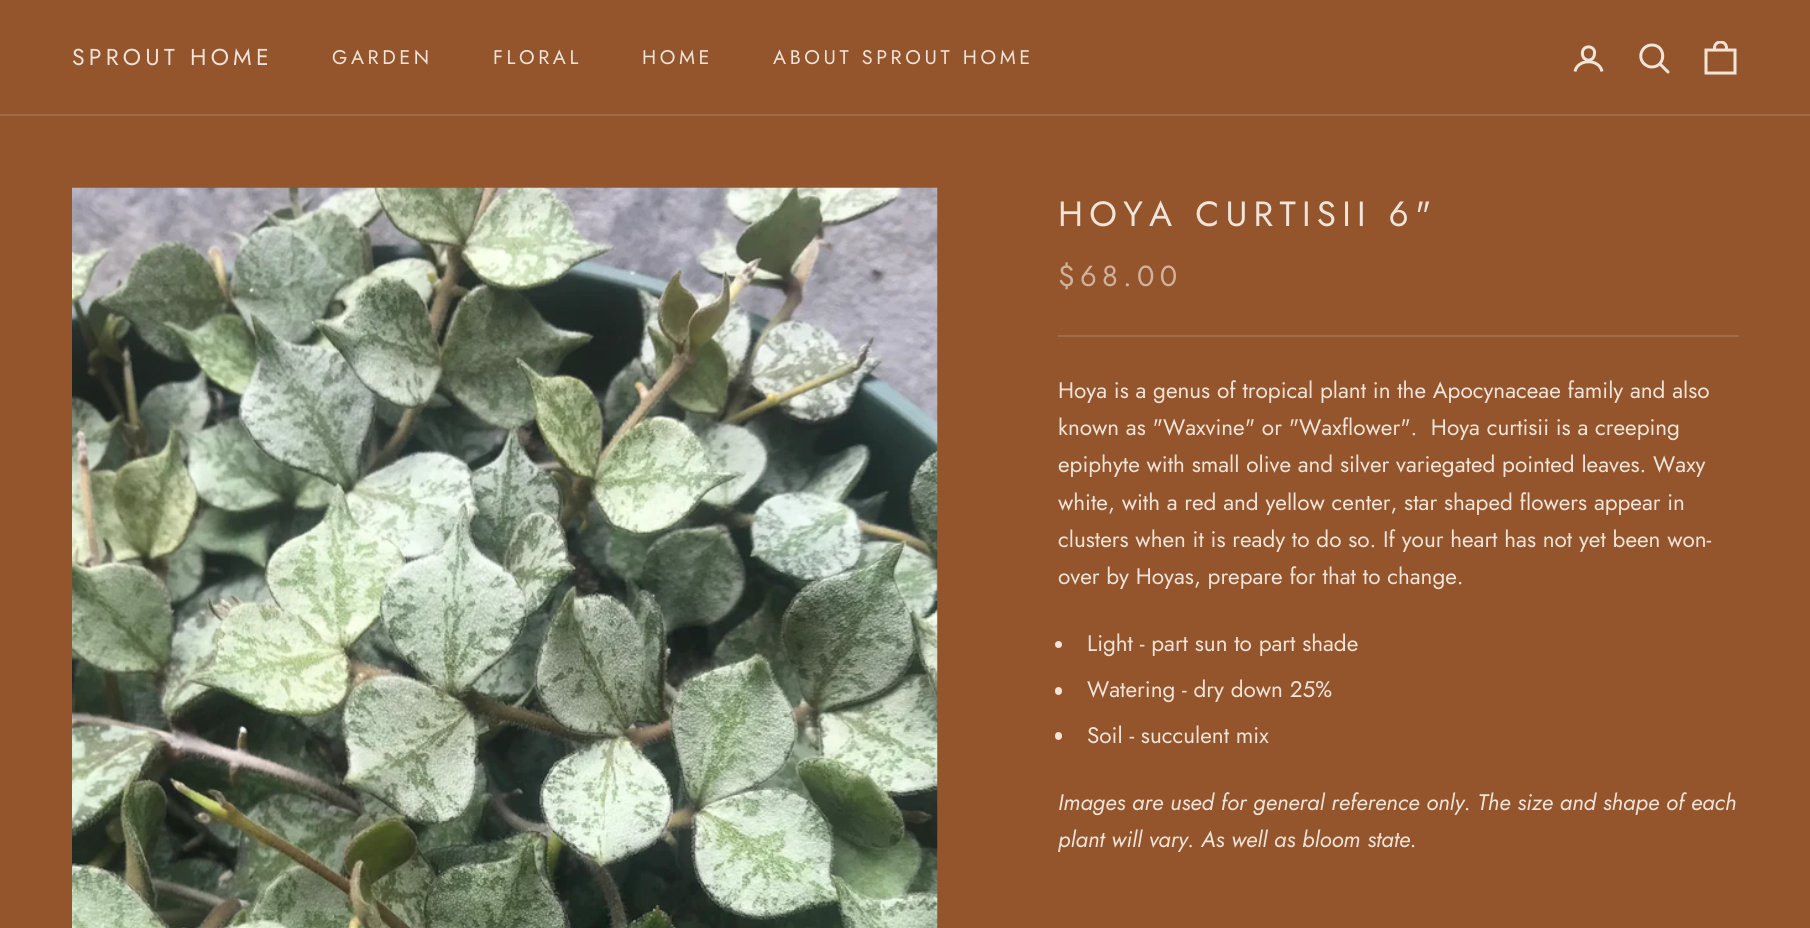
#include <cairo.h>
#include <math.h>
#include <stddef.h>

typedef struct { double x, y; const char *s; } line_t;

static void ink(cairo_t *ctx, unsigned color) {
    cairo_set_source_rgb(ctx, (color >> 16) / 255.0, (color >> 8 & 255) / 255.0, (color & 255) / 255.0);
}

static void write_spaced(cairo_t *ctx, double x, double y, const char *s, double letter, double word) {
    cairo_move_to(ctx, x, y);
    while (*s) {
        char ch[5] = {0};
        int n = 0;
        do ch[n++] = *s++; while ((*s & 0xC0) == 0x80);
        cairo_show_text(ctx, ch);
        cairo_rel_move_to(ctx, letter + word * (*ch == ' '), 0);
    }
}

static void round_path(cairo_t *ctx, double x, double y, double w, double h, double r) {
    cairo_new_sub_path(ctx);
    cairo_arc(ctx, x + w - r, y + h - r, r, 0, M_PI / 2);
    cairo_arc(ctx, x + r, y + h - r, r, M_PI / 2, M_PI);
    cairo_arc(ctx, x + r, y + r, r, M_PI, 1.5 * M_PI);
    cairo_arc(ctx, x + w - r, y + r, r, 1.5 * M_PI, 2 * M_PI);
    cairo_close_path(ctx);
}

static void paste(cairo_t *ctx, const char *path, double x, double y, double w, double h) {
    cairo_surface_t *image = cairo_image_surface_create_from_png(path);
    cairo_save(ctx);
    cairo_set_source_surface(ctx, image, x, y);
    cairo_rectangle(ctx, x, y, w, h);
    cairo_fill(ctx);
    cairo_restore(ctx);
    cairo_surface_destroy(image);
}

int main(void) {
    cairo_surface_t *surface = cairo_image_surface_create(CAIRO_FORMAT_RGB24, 1810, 928);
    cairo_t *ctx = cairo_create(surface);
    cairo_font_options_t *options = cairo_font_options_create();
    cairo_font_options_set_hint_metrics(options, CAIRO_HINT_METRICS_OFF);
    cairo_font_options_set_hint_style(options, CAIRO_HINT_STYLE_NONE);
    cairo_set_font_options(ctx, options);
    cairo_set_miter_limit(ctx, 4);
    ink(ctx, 0x94552D);
    cairo_paint(ctx);
    ink(ctx, 0xA26A47);
    cairo_rectangle(ctx, 0, 114, 1810, 2);
    cairo_fill(ctx);
    cairo_select_font_face(ctx, "Jost", CAIRO_FONT_SLANT_NORMAL, CAIRO_FONT_WEIGHT_NORMAL);
    cairo_set_font_size(ctx, 23);
    ink(ctx, 0xF1E4D8);
    write_spaced(ctx, 72, 65, "SPROUT HOME", 4.25, 0);
    cairo_set_font_size(ctx, 19.75);
    {
        static const line_t items[] = {
            {332, 64, "GARDEN"},
            {493, 64, "FLORAL"},
            {642, 64, "HOME"},
            {773, 64, "ABOUT SPROUT HOME"},
        };
        for (size_t i = 0; i < sizeof items / sizeof *items; i++) {
            write_spaced(ctx, items[i].x, items[i].y, items[i].s, 3.6, 0);
        }
    }
    cairo_new_path(ctx);
    cairo_move_to(ctx, 1594.5, 53.5);
    cairo_curve_to(ctx, 1594, 63.5, 1581, 61.5, 1582.5, 52);
    cairo_curve_to(ctx, 1583.5, 44.5, 1595.5, 45.5, 1594.5, 53.5);
    cairo_close_path(ctx);
    cairo_set_line_width(ctx, 3);
    cairo_set_line_cap(ctx, CAIRO_LINE_CAP_ROUND);
    cairo_set_line_join(ctx, CAIRO_LINE_JOIN_ROUND);
    cairo_stroke(ctx);
    cairo_new_path(ctx);
    cairo_move_to(ctx, 1575, 71.5);
    cairo_curve_to(ctx, 1577.5, 58.5, 1599.5, 58.5, 1602, 71.5);
    cairo_set_line_cap(ctx, CAIRO_LINE_CAP_BUTT);
    cairo_set_line_join(ctx, CAIRO_LINE_JOIN_MITER);
    cairo_stroke(ctx);
    cairo_new_path(ctx);
    cairo_move_to(ctx, 1652, 45);
    cairo_curve_to(ctx, 1640.5, 45, 1636.5, 60, 1646.5, 65.5);
    cairo_curve_to(ctx, 1648, 66.5, 1650, 67, 1652, 67);
    cairo_curve_to(ctx, 1666.5, 66.5, 1666, 45, 1652, 45);
    cairo_close_path(ctx);
    cairo_stroke(ctx);
    cairo_new_path(ctx);
    cairo_move_to(ctx, 1660.5, 64.5);
    cairo_line_to(ctx, 1668, 72);
    cairo_set_line_cap(ctx, CAIRO_LINE_CAP_ROUND);
    cairo_stroke(ctx);
    cairo_save(ctx);
    cairo_rectangle(ctx, 1703, 41, 36, 36);
    cairo_clip(ctx);
    cairo_new_path(ctx);
    cairo_move_to(ctx, 1735, 73);
    cairo_line_to(ctx, 1735, 50);
    cairo_line_to(ctx, 1706, 50);
    cairo_line_to(ctx, 1706, 73);
    cairo_close_path(ctx);
    cairo_move_to(ctx, 1714.5, 49.5);
    cairo_line_to(ctx, 1714.5, 48);
    cairo_curve_to(ctx, 1714.5, 44.5, 1717, 42, 1720.5, 42);
    cairo_curve_to(ctx, 1724, 42, 1726.5, 44.5, 1726.5, 48);
    cairo_line_to(ctx, 1726.5, 49.5);
    cairo_set_line_cap(ctx, CAIRO_LINE_CAP_BUTT);
    cairo_stroke(ctx);
    cairo_restore(ctx);
    paste(ctx, "media/1.png", 72, 187, 866, 741);
    cairo_set_font_size(ctx, 35);
    write_spaced(ctx, 1058, 226, "HOYA CURTISII 6\"", 6.25, 0);
    cairo_set_font_size(ctx, 29);
    ink(ctx, 0xD0B29C);
    write_spaced(ctx, 1058, 286, "$68.00", 5.25, 0);
    ink(ctx, 0xA26A47);
    cairo_rectangle(ctx, 1058, 335, 681, 2);
    cairo_fill(ctx);
    cairo_set_font_size(ctx, 22.5);
    ink(ctx, 0xF1E4D8);
    {
        static const line_t items[] = {
            {1058, 398, "Hoya is a genus of tropical plant in the Apocynaceae family and also"},
            {1058, 435, "known as \"Waxvine\" or \"Waxflower\".  Hoya curtisii is a creeping"},
            {1058, 472, "epiphyte with small olive and silver variegated pointed leaves. Waxy"},
            {1058, 510, "white, with a red and yellow center, star shaped flowers appear in"},
            {1058, 547, "clusters when it is ready to do so. If your heart has not yet been won-"},
            {1058, 584, "over by Hoyas, prepare for that to change."},
        };
        for (size_t i = 0; i < sizeof items / sizeof *items; i++) {
            cairo_move_to(ctx, items[i].x, items[i].y);
            cairo_show_text(ctx, items[i].s);
        }
    }
    cairo_new_path(ctx);
    cairo_arc(ctx, 1058.5, 644.5, 3.5, 0, 2 * M_PI);
    cairo_fill(ctx);
    cairo_move_to(ctx, 1087, 651);
    cairo_show_text(ctx, "Light - part sun to part shade");
    round_path(ctx, 1055, 687, 7, 8, 3.5);
    cairo_fill(ctx);
    cairo_move_to(ctx, 1087, 697);
    cairo_show_text(ctx, "Watering - dry down 25%");
    round_path(ctx, 1055, 732, 7, 8, 3.5);
    cairo_fill(ctx);
    cairo_move_to(ctx, 1087, 743);
    cairo_show_text(ctx, "Soil - succulent mix");
    cairo_select_font_face(ctx, "Jost", CAIRO_FONT_SLANT_ITALIC, CAIRO_FONT_WEIGHT_NORMAL);
    cairo_move_to(ctx, 1058, 810);
    cairo_show_text(ctx, "Images are used for general reference only. The size and shape of each");
    cairo_move_to(ctx, 1058, 847);
    cairo_show_text(ctx, "plant will vary. As well as bloom state.");
    cairo_surface_write_to_png(surface, "image.png");
    cairo_font_options_destroy(options);
    cairo_destroy(ctx);
    cairo_surface_destroy(surface);
    return 0;
}
